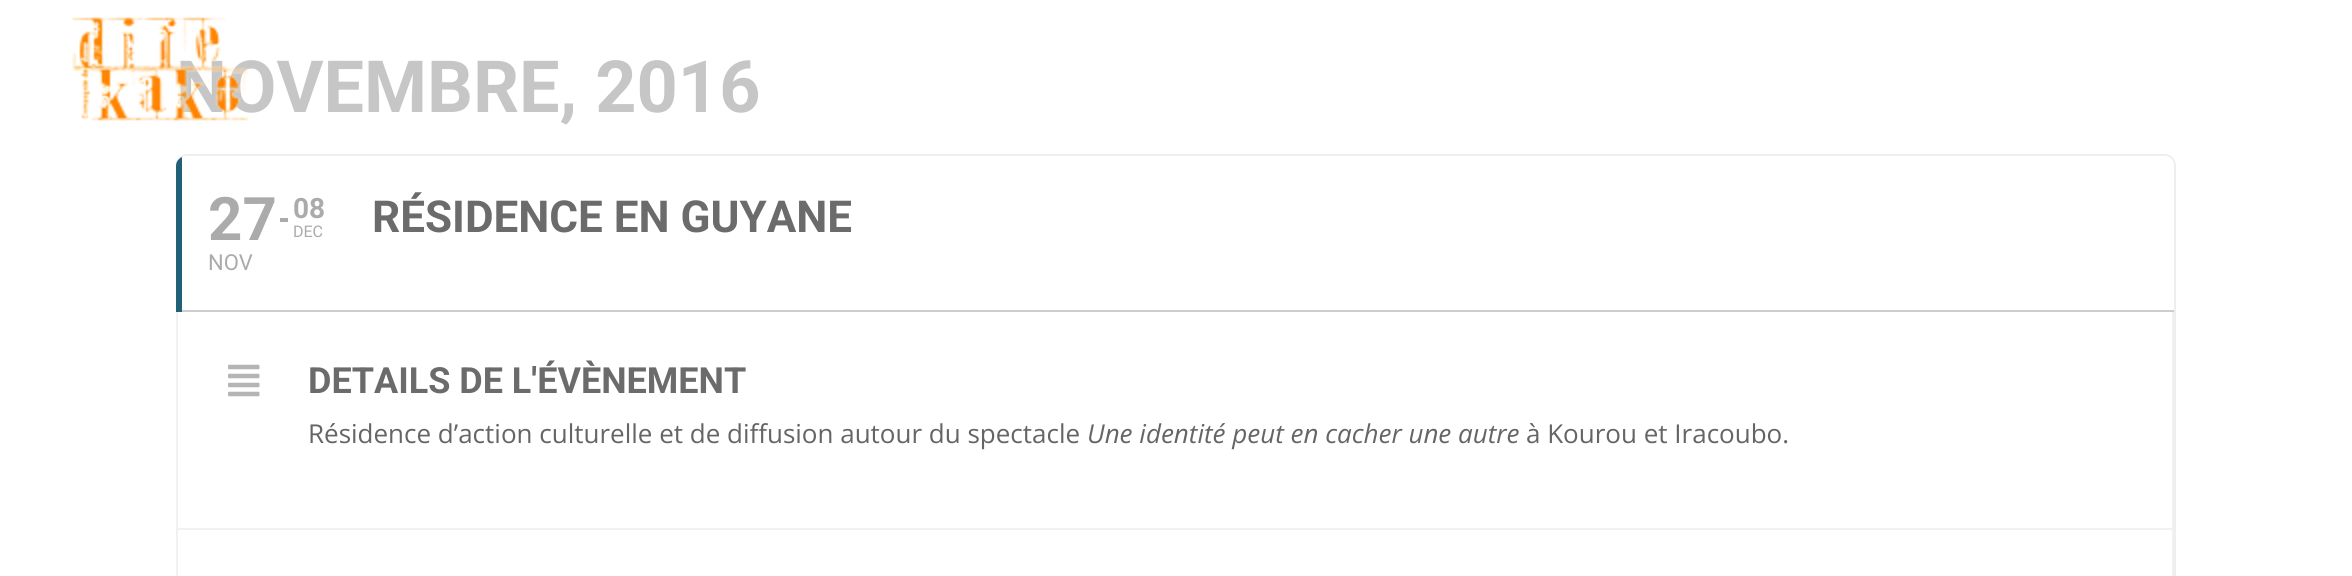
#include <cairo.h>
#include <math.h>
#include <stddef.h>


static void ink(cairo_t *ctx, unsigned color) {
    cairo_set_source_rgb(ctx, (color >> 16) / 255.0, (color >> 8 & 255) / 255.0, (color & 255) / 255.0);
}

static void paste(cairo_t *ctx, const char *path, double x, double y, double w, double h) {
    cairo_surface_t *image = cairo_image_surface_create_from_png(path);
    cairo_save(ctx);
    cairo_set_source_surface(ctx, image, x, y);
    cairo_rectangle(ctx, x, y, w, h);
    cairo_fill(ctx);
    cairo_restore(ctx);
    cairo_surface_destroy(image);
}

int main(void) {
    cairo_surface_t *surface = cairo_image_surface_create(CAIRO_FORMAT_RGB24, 2352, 576);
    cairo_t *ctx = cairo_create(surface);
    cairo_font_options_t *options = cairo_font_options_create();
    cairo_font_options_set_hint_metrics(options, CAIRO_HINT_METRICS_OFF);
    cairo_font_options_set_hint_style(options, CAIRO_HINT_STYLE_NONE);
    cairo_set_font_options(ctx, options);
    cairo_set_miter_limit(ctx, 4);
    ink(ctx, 0xFFFFFF);
    cairo_paint(ctx);
    cairo_select_font_face(ctx, "Roboto", CAIRO_FONT_SLANT_NORMAL, CAIRO_FONT_WEIGHT_BOLD);
    cairo_set_font_size(ctx, 72);
    ink(ctx, 0xC6C6C6);
    cairo_move_to(ctx, 176, 112);
    cairo_show_text(ctx, "NOVEMBRE, 2016");
    paste(ctx, "media/1.png", 72, 17, 176, 104);
    ink(ctx, 0xEFEEEE);
    cairo_set_fill_rule(ctx, CAIRO_FILL_RULE_EVEN_ODD);
    cairo_new_path(ctx);
    cairo_move_to(ctx, 188, 154);
    cairo_line_to(ctx, 2164, 154);
    cairo_curve_to(ctx, 2171, 154, 2176, 159, 2176, 166);
    cairo_line_to(ctx, 2176, 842);
    cairo_curve_to(ctx, 2176, 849, 2171, 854, 2164, 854);
    cairo_line_to(ctx, 188, 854);
    cairo_curve_to(ctx, 181, 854, 176, 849, 176, 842);
    cairo_line_to(ctx, 176, 166);
    cairo_curve_to(ctx, 176, 159, 181, 154, 188, 154);
    cairo_close_path(ctx);
    cairo_move_to(ctx, 188, 156);
    cairo_line_to(ctx, 2164, 156);
    cairo_curve_to(ctx, 2170, 156, 2174, 160, 2174, 166);
    cairo_line_to(ctx, 2174, 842);
    cairo_curve_to(ctx, 2174, 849, 2170, 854, 2164, 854);
    cairo_line_to(ctx, 188, 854);
    cairo_curve_to(ctx, 181, 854, 176, 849, 176, 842);
    cairo_line_to(ctx, 176, 166);
    cairo_curve_to(ctx, 176, 160, 181, 156, 188, 156);
    cairo_close_path(ctx);
    cairo_fill(ctx);
    ink(ctx, 0xFFFFFF);
    cairo_set_fill_rule(ctx, CAIRO_FILL_RULE_WINDING);
    cairo_new_path(ctx);
    cairo_move_to(ctx, 188, 156);
    cairo_curve_to(ctx, 181, 156, 176, 160, 176, 166);
    cairo_line_to(ctx, 176, 312);
    cairo_line_to(ctx, 2174, 312);
    cairo_line_to(ctx, 2174, 166);
    cairo_curve_to(ctx, 2174, 160, 2170, 156, 2164, 156);
    cairo_close_path(ctx);
    cairo_fill(ctx);
    ink(ctx, 0x206177);
    cairo_new_path(ctx);
    cairo_move_to(ctx, 182, 157);
    cairo_curve_to(ctx, 178, 159, 176, 162, 176, 166);
    cairo_line_to(ctx, 176, 312);
    cairo_line_to(ctx, 182, 312);
    cairo_close_path(ctx);
    cairo_fill(ctx);
    cairo_set_font_size(ctx, 60);
    ink(ctx, 0xABABAB);
    cairo_move_to(ctx, 208, 240);
    cairo_show_text(ctx, "27");
    cairo_select_font_face(ctx, "Roboto", CAIRO_FONT_SLANT_NORMAL, CAIRO_FONT_WEIGHT_NORMAL);
    cairo_set_font_size(ctx, 22);
    cairo_move_to(ctx, 208, 270);
    cairo_show_text(ctx, "NOV");
    cairo_select_font_face(ctx, "Roboto", CAIRO_FONT_SLANT_NORMAL, CAIRO_FONT_WEIGHT_BOLD);
    cairo_set_font_size(ctx, 28);
    cairo_move_to(ctx, 293, 218);
    cairo_show_text(ctx, "08");
    cairo_rectangle(ctx, 280, 218, 8, 4);
    cairo_fill(ctx);
    cairo_select_font_face(ctx, "Roboto", CAIRO_FONT_SLANT_NORMAL, CAIRO_FONT_WEIGHT_NORMAL);
    cairo_set_font_size(ctx, 16);
    cairo_move_to(ctx, 293, 237);
    cairo_show_text(ctx, "DEC");
    cairo_select_font_face(ctx, "Roboto", CAIRO_FONT_SLANT_NORMAL, CAIRO_FONT_WEIGHT_BOLD);
    cairo_set_font_size(ctx, 44);
    ink(ctx, 0x6B6B6B);
    cairo_move_to(ctx, 372, 232);
    cairo_show_text(ctx, "RÉSIDENCE EN GUYANE");
    ink(ctx, 0xCDCDCD);
    cairo_rectangle(ctx, 182, 310, 1992, 2);
    cairo_fill(ctx);
    ink(ctx, 0xF1F1F1);
    cairo_new_path(ctx);
    cairo_move_to(ctx, 2172, 312);
    cairo_line_to(ctx, 2172, 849);
    cairo_curve_to(ctx, 2173, 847, 2174, 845, 2174, 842);
    cairo_line_to(ctx, 2174, 312);
    cairo_close_path(ctx);
    cairo_fill(ctx);
    cairo_new_path(ctx);
    cairo_move_to(ctx, 176, 312);
    cairo_line_to(ctx, 176, 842);
    cairo_curve_to(ctx, 176, 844, 177, 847, 178, 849);
    cairo_line_to(ctx, 178, 312);
    cairo_close_path(ctx);
    cairo_fill(ctx);
    cairo_rectangle(ctx, 178, 528, 1994, 2);
    cairo_fill(ctx);
    paste(ctx, "media/2.png", 228, 364, 32, 33);
    cairo_set_font_size(ctx, 36);
    ink(ctx, 0x6B6B6B);
    cairo_move_to(ctx, 308, 393);
    cairo_show_text(ctx, "DETAILS DE L'ÉVÈNEMENT");
    cairo_select_font_face(ctx, "Open Sans", CAIRO_FONT_SLANT_NORMAL, CAIRO_FONT_WEIGHT_NORMAL);
    cairo_set_font_size(ctx, 26);
    ink(ctx, 0x656565);
    cairo_move_to(ctx, 308, 443);
    cairo_show_text(ctx, "Résidence d’action culturelle et de diffusion autour du spectacle");
    cairo_select_font_face(ctx, "Open Sans", CAIRO_FONT_SLANT_ITALIC, CAIRO_FONT_WEIGHT_NORMAL);
    cairo_move_to(ctx, 1087, 443);
    cairo_show_text(ctx, "Une identité peut en cacher une autre");
    cairo_select_font_face(ctx, "Open Sans", CAIRO_FONT_SLANT_NORMAL, CAIRO_FONT_WEIGHT_NORMAL);
    cairo_move_to(ctx, 1526, 443);
    cairo_show_text(ctx, "à Kourou et Iracoubo.");
    cairo_surface_write_to_png(surface, "image.png");
    cairo_font_options_destroy(options);
    cairo_destroy(ctx);
    cairo_surface_destroy(surface);
    return 0;
}
